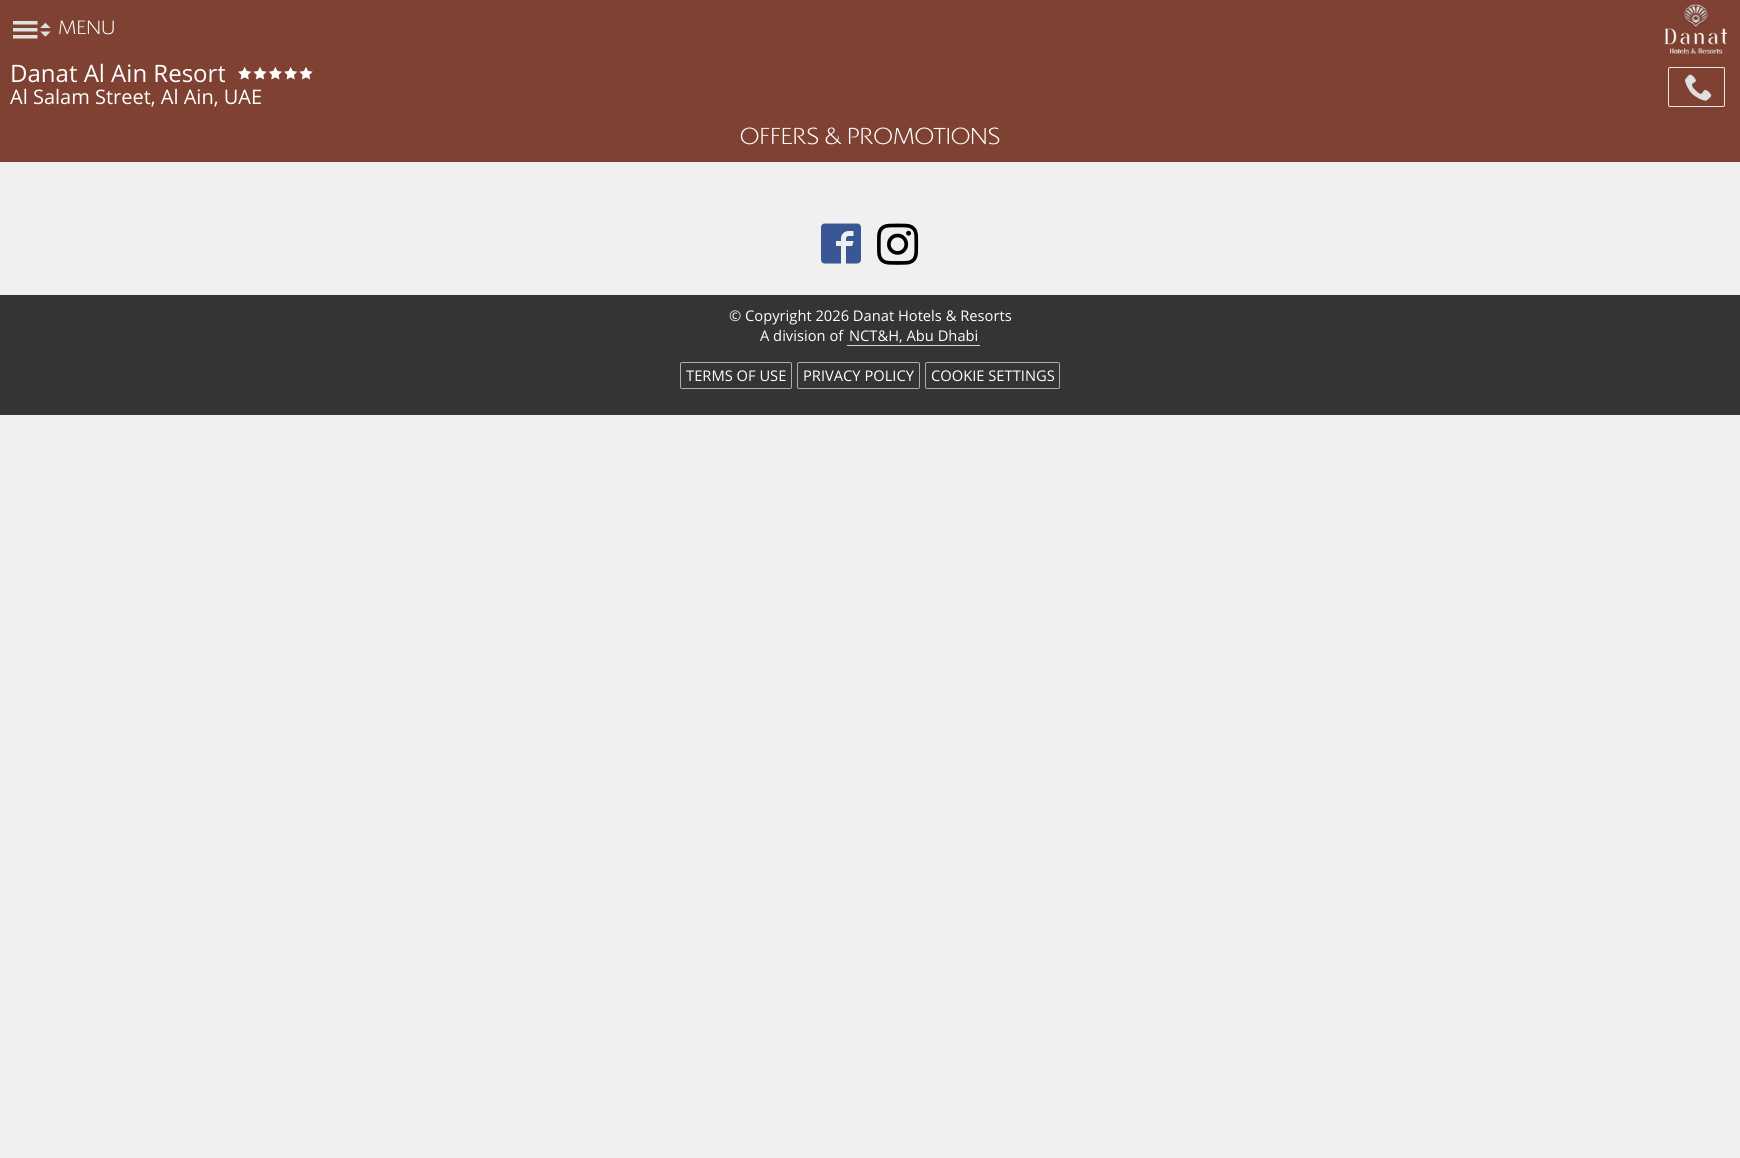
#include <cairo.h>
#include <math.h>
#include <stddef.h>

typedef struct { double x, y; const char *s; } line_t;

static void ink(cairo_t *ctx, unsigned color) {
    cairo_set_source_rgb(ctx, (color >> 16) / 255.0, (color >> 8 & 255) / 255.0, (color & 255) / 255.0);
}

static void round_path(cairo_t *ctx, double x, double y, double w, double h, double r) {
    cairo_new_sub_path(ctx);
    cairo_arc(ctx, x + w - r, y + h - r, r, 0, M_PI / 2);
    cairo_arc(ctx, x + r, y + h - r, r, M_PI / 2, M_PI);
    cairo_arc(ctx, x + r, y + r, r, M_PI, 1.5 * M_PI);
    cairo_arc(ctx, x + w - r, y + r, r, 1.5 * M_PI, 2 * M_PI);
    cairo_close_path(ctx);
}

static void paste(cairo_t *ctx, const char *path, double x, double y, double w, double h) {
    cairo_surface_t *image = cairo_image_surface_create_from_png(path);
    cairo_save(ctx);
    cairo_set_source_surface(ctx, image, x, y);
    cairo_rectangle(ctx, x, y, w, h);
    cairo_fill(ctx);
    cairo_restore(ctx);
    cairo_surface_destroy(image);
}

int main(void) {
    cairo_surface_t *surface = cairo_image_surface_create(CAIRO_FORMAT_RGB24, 1740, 1158);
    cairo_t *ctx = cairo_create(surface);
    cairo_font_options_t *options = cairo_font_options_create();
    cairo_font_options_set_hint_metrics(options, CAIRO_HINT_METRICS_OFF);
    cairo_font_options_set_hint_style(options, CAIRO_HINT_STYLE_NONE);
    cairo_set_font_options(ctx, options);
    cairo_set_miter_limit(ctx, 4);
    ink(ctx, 0xF0F0F0);
    cairo_paint(ctx);
    ink(ctx, 0x7F4131);
    cairo_rectangle(ctx, 0, 0, 1740, 116);
    cairo_fill(ctx);
    paste(ctx, "media/1.png", 13, 21, 38, 18);
    cairo_select_font_face(ctx, "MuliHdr", CAIRO_FONT_SLANT_NORMAL, CAIRO_FONT_WEIGHT_NORMAL);
    cairo_set_font_size(ctx, 20);
    ink(ctx, 0xFFFFFF);
    cairo_move_to(ctx, 58, 34);
    cairo_show_text(ctx, "MENU");
    paste(ctx, "media/2.png", 1664, 4, 63, 51);
    cairo_select_font_face(ctx, "Open Sans", CAIRO_FONT_SLANT_NORMAL, CAIRO_FONT_WEIGHT_NORMAL);
    cairo_set_font_size(ctx, 24);
    cairo_move_to(ctx, 10, 82);
    cairo_show_text(ctx, "Danat Al Ain Resort");
    paste(ctx, "media/3.png", 238, 67, 75, 13);
    cairo_set_font_size(ctx, 20);
    cairo_move_to(ctx, 10, 104);
    cairo_show_text(ctx, "Al Salam Street, Al Ain, UAE");
    round_path(ctx, 1668.5, 67.5, 56, 39, 1.5);
    ink(ctx, 0xEAEAEA);
    cairo_set_line_width(ctx, 1);
    cairo_stroke(ctx);
    paste(ctx, "media/4.png", 1685, 74, 27, 27);
    ink(ctx, 0x7F4131);
    cairo_rectangle(ctx, 0, 116, 1740, 46);
    cairo_fill(ctx);
    cairo_select_font_face(ctx, "MuliHdr", CAIRO_FONT_SLANT_NORMAL, CAIRO_FONT_WEIGHT_NORMAL);
    cairo_set_font_size(ctx, 24);
    ink(ctx, 0xFFFFFF);
    cairo_move_to(ctx, 740, 144);
    cairo_show_text(ctx, "OFFERS & PROMOTIONS");
    paste(ctx, "media/5.png", 821, 223, 40, 41);
    paste(ctx, "media/6.png", 877, 223, 42, 42);
    ink(ctx, 0x353333);
    cairo_rectangle(ctx, 0, 295, 1740, 120);
    cairo_fill(ctx);
    cairo_select_font_face(ctx, "Open Sans", CAIRO_FONT_SLANT_NORMAL, CAIRO_FONT_WEIGHT_NORMAL);
    cairo_set_font_size(ctx, 14.7);
    ink(ctx, 0xFFFFFF);
    {
        static const line_t items[] = {
            {729, 321, "© Copyright 2026 Danat Hotels & Resorts"},
            {760, 341, "A division of"},
            {849, 341, "NCT&H, Abu Dhabi"},
        };
        for (size_t i = 0; i < sizeof items / sizeof *items; i++) {
            cairo_move_to(ctx, items[i].x, items[i].y);
            cairo_show_text(ctx, items[i].s);
        }
    }
    ink(ctx, 0xD7D6D6);
    cairo_rectangle(ctx, 847, 345, 133, 1);
    cairo_fill(ctx);
    round_path(ctx, 680.5, 362.5, 111, 26, 1.5);
    ink(ctx, 0xAEADAD);
    cairo_stroke(ctx);
    ink(ctx, 0xFFFFFF);
    cairo_move_to(ctx, 686, 381);
    cairo_show_text(ctx, "TERMS OF USE");
    round_path(ctx, 797.5, 362.5, 122, 26, 1.5);
    ink(ctx, 0xAEADAD);
    cairo_stroke(ctx);
    ink(ctx, 0xFFFFFF);
    cairo_move_to(ctx, 803, 381);
    cairo_show_text(ctx, "PRIVACY POLICY");
    round_path(ctx, 925.5, 362.5, 134, 26, 1.5);
    ink(ctx, 0xAEADAD);
    cairo_stroke(ctx);
    ink(ctx, 0xFFFFFF);
    cairo_move_to(ctx, 931, 381);
    cairo_show_text(ctx, "COOKIE SETTINGS");
    cairo_surface_write_to_png(surface, "image.png");
    cairo_font_options_destroy(options);
    cairo_destroy(ctx);
    cairo_surface_destroy(surface);
    return 0;
}
